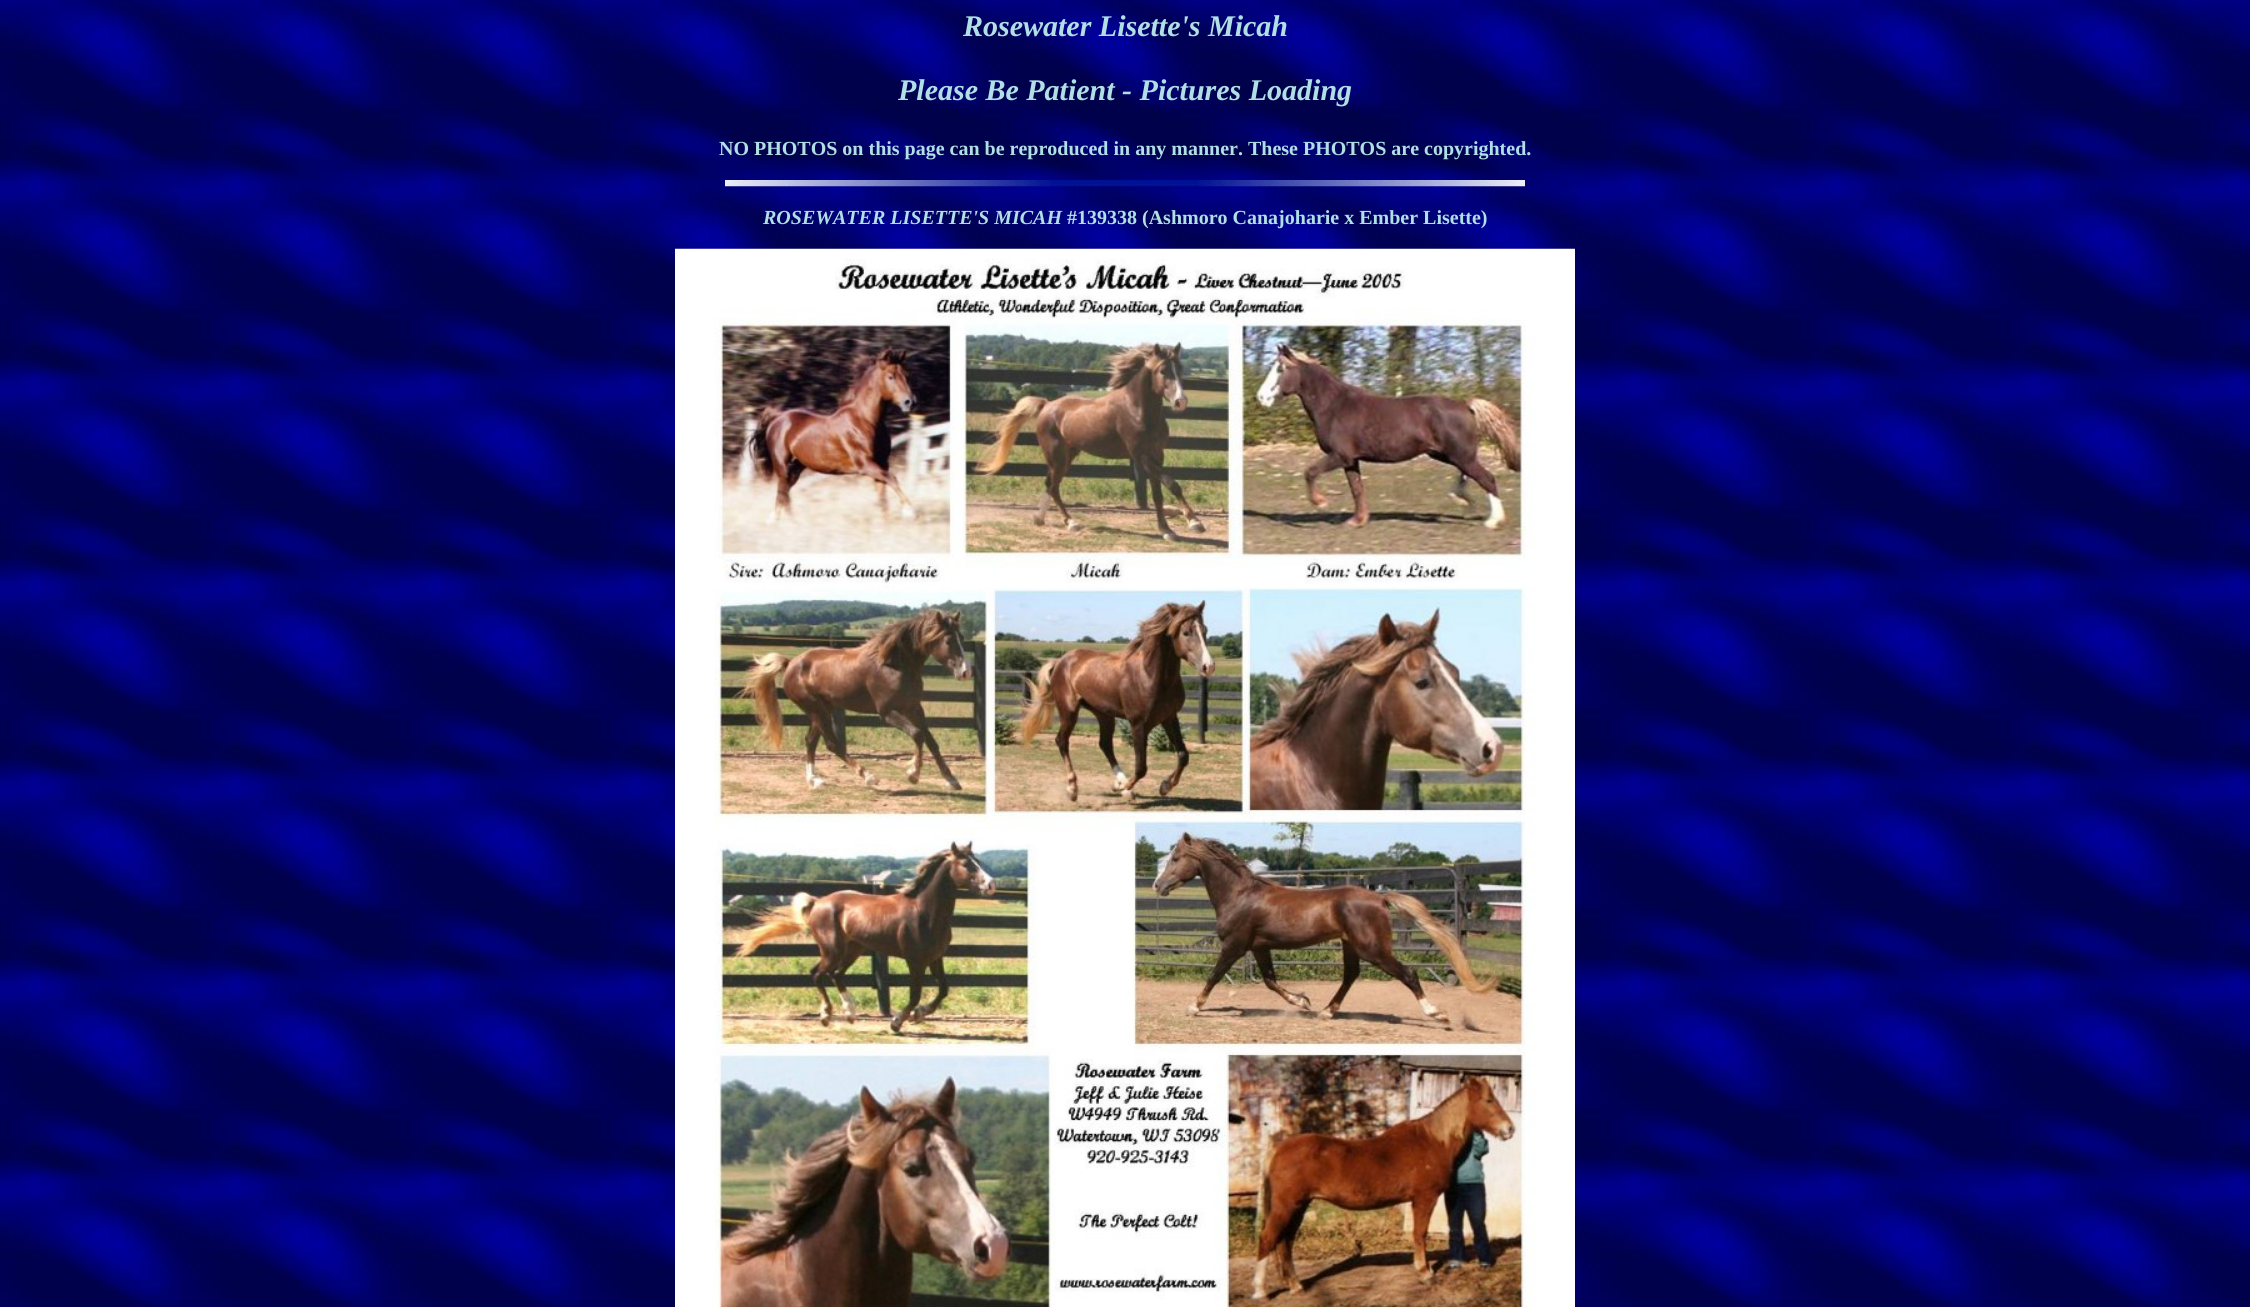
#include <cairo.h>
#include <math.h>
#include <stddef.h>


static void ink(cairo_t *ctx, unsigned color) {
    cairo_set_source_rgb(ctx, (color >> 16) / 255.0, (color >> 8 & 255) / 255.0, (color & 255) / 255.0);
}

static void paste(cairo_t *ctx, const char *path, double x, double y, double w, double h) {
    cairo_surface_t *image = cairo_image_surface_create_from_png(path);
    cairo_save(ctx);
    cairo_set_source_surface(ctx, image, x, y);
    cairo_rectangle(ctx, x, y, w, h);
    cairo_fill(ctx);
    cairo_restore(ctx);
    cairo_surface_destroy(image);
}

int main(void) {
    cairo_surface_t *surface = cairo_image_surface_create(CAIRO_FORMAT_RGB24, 2250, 1307);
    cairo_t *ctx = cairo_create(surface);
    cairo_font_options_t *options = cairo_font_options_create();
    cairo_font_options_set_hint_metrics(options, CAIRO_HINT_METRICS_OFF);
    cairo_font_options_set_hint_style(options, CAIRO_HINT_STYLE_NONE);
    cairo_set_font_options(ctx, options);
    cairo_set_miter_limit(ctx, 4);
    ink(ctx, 0xFFFFFF);
    cairo_paint(ctx);
    paste(ctx, "media/1.png", 0, 0, 2250, 1307);
    cairo_select_font_face(ctx, "Liberation Serif", CAIRO_FONT_SLANT_ITALIC, CAIRO_FONT_WEIGHT_BOLD);
    cairo_set_font_size(ctx, 30);
    ink(ctx, 0xB0E0E6);
    cairo_move_to(ctx, 963, 36);
    cairo_show_text(ctx, "Rosewater Lisette's Micah");
    cairo_move_to(ctx, 898, 100);
    cairo_show_text(ctx, "Please Be Patient - Pictures Loading");
    cairo_select_font_face(ctx, "Liberation Serif", CAIRO_FONT_SLANT_NORMAL, CAIRO_FONT_WEIGHT_BOLD);
    cairo_set_font_size(ctx, 20);
    cairo_move_to(ctx, 719, 155);
    cairo_show_text(ctx, "NO PHOTOS on this page can be reproduced in any manner. These PHOTOS are copyrighted.");
    paste(ctx, "media/2.png", 725, 180, 800, 7);
    cairo_select_font_face(ctx, "Liberation Serif", CAIRO_FONT_SLANT_ITALIC, CAIRO_FONT_WEIGHT_BOLD);
    cairo_move_to(ctx, 763, 224);
    cairo_show_text(ctx, "ROSEWATER LISETTE'S MICAH");
    cairo_select_font_face(ctx, "Liberation Serif", CAIRO_FONT_SLANT_NORMAL, CAIRO_FONT_WEIGHT_BOLD);
    cairo_move_to(ctx, 1067, 224);
    cairo_show_text(ctx, "#139338 (Ashmoro Canajoharie x Ember Lisette)");
    paste(ctx, "media/3.png", 675, 248, 900, 1059);
    cairo_surface_write_to_png(surface, "image.png");
    cairo_font_options_destroy(options);
    cairo_destroy(ctx);
    cairo_surface_destroy(surface);
    return 0;
}
